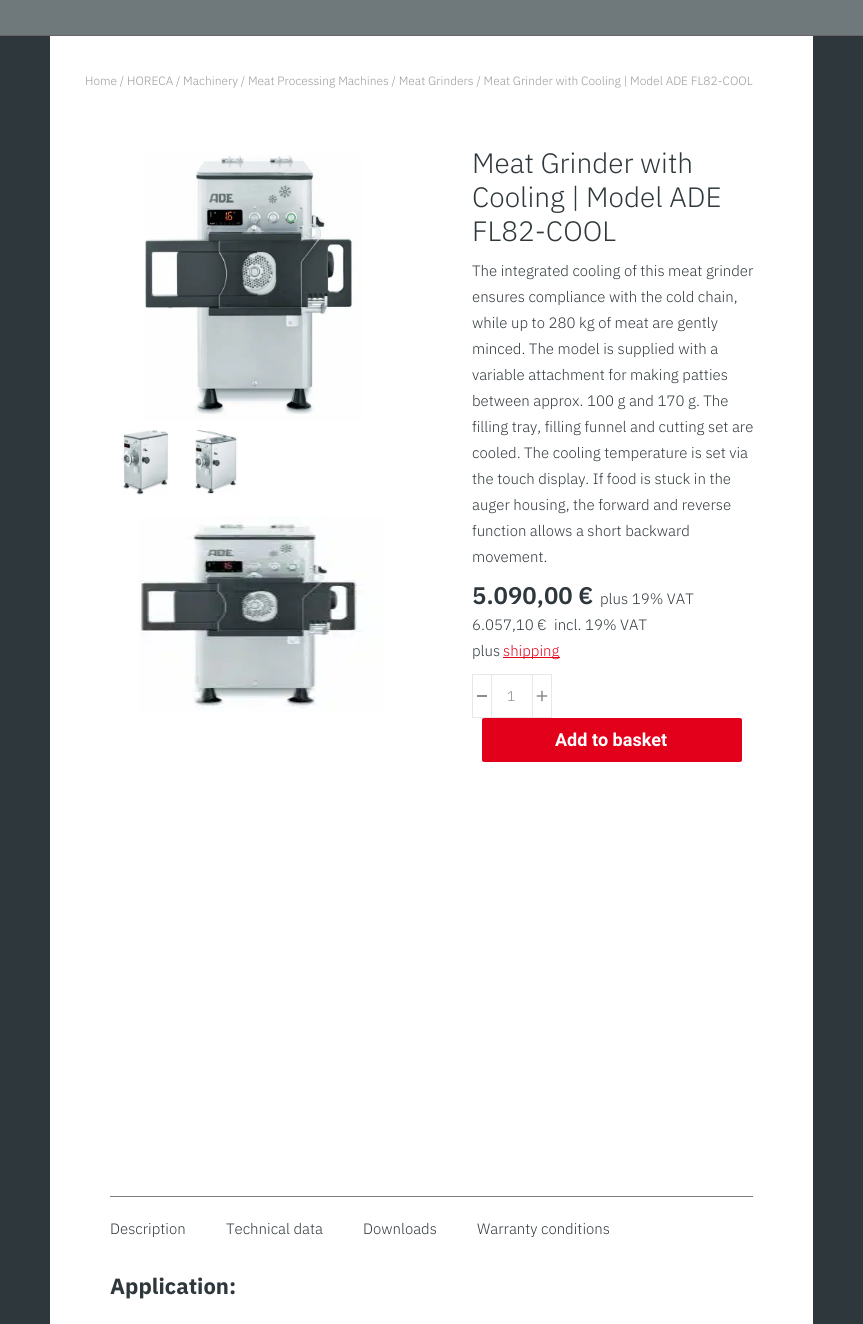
#include <cairo.h>
#include <math.h>
#include <stddef.h>

typedef struct { double x, y; const char *s; } line_t;
typedef struct { double x, y, w, h; unsigned color; } box_t;

static void ink(cairo_t *ctx, unsigned color) {
    cairo_set_source_rgb(ctx, (color >> 16) / 255.0, (color >> 8 & 255) / 255.0, (color & 255) / 255.0);
}

static void round_path(cairo_t *ctx, double x, double y, double w, double h, double r) {
    cairo_new_sub_path(ctx);
    cairo_arc(ctx, x + w - r, y + h - r, r, 0, M_PI / 2);
    cairo_arc(ctx, x + r, y + h - r, r, M_PI / 2, M_PI);
    cairo_arc(ctx, x + r, y + r, r, M_PI, 1.5 * M_PI);
    cairo_arc(ctx, x + w - r, y + r, r, 1.5 * M_PI, 2 * M_PI);
    cairo_close_path(ctx);
}

static void paste(cairo_t *ctx, const char *path, double x, double y, double w, double h) {
    cairo_surface_t *image = cairo_image_surface_create_from_png(path);
    cairo_save(ctx);
    cairo_set_source_surface(ctx, image, x, y);
    cairo_rectangle(ctx, x, y, w, h);
    cairo_fill(ctx);
    cairo_restore(ctx);
    cairo_surface_destroy(image);
}

int main(void) {
    cairo_surface_t *surface = cairo_image_surface_create(CAIRO_FORMAT_RGB24, 863, 1324);
    cairo_t *ctx = cairo_create(surface);
    cairo_font_options_t *options = cairo_font_options_create();
    cairo_font_options_set_hint_metrics(options, CAIRO_HINT_METRICS_OFF);
    cairo_font_options_set_hint_style(options, CAIRO_HINT_STYLE_NONE);
    cairo_set_font_options(ctx, options);
    cairo_set_miter_limit(ctx, 4);
    ink(ctx, 0x2E373B);
    cairo_paint(ctx);
    {
        static const box_t items[] = {
            {0, 0, 863, 35, 0x6F787B},
            {0, 35, 863, 1, 0x666666},
            {50, 36, 763, 1288, 0xFFFFFF},
        };
        for (size_t i = 0; i < sizeof items / sizeof *items; i++) {
            ink(ctx, items[i].color);
            cairo_rectangle(ctx, items[i].x, items[i].y, items[i].w, items[i].h);
            cairo_fill(ctx);
        }
    }
    cairo_select_font_face(ctx, "IBM Plex Sans Light", CAIRO_FONT_SLANT_NORMAL, CAIRO_FONT_WEIGHT_NORMAL);
    cairo_set_font_size(ctx, 12);
    ink(ctx, 0x999999);
    cairo_move_to(ctx, 85, 85);
    cairo_show_text(ctx, "Home / HORECA / Machinery / Meat Processing Machines / Meat Grinders / Meat Grinder with Cooling | Model ADE FL82-COOL");
    paste(ctx, "media/1.png", 144, 154, 219, 267);
    paste(ctx, "media/2.png", 122, 429, 47, 66);
    paste(ctx, "media/3.png", 195, 430, 43, 64);
    paste(ctx, "media/4.png", 139, 516, 246, 196);
    cairo_set_font_size(ctx, 28);
    ink(ctx, 0x2E373B);
    {
        static const line_t items[] = {
            {472, 173, "Meat Grinder with"},
            {472, 207, "Cooling | Model ADE"},
            {472, 241, "FL82-COOL"},
        };
        for (size_t i = 0; i < sizeof items / sizeof *items; i++) {
            cairo_move_to(ctx, items[i].x, items[i].y);
            cairo_show_text(ctx, items[i].s);
        }
    }
    cairo_set_font_size(ctx, 15);
    {
        static const line_t items[] = {
            {472, 276, "The integrated cooling of this meat grinder"},
            {472, 302, "ensures compliance with the cold chain,"},
            {472, 328, "while up to 280 kg of meat are gently"},
            {472, 354, "minced. The model is supplied with a"},
            {472, 380, "variable attachment for making patties"},
            {472, 406, "between approx. 100 g and 170 g. The"},
            {472, 432, "filling tray, filling funnel and cutting set are"},
            {472, 458, "cooled. The cooling temperature is set via"},
            {472, 484, "the touch display. If food is stuck in the"},
            {472, 510, "auger housing, the forward and reverse"},
            {472, 536, "function allows a short backward"},
            {472, 562, "movement."},
        };
        for (size_t i = 0; i < sizeof items / sizeof *items; i++) {
            cairo_move_to(ctx, items[i].x, items[i].y);
            cairo_show_text(ctx, items[i].s);
        }
    }
    cairo_select_font_face(ctx, "IBM Plex Sans SemiBold", CAIRO_FONT_SLANT_NORMAL, CAIRO_FONT_WEIGHT_NORMAL);
    cairo_set_font_size(ctx, 24);
    cairo_move_to(ctx, 472, 604);
    cairo_show_text(ctx, "5.090,00 €");
    cairo_select_font_face(ctx, "IBM Plex Sans Light", CAIRO_FONT_SLANT_NORMAL, CAIRO_FONT_WEIGHT_NORMAL);
    cairo_set_font_size(ctx, 15);
    {
        static const line_t items[] = {
            {600, 604, "plus 19% VAT"},
            {472, 630, "6.057,10 €"},
            {554, 630, "incl. 19% VAT"},
            {472, 656, "plus"},
        };
        for (size_t i = 0; i < sizeof items / sizeof *items; i++) {
            cairo_move_to(ctx, items[i].x, items[i].y);
            cairo_show_text(ctx, items[i].s);
        }
    }
    ink(ctx, 0xE2001A);
    cairo_rectangle(ctx, 503, 657, 57, 1);
    cairo_fill(ctx);
    cairo_move_to(ctx, 503, 656);
    cairo_show_text(ctx, "shipping");
    cairo_new_path(ctx);
    cairo_move_to(ctx, 473, 674.5);
    cairo_line_to(ctx, 491.5, 674.5);
    cairo_line_to(ctx, 491.5, 717.5);
    cairo_line_to(ctx, 473, 717.5);
    cairo_curve_to(ctx, 472.5, 717.5, 472.5, 717.5, 472.5, 717);
    cairo_line_to(ctx, 472.5, 675);
    cairo_curve_to(ctx, 472.5, 674.5, 472.5, 674.5, 473, 674.5);
    cairo_close_path(ctx);
    ink(ctx, 0xE7E7E7);
    cairo_set_line_width(ctx, 1);
    cairo_stroke(ctx);
    {
        static const box_t items[] = {
            {477, 695, 10, 2, 0x8B8D94},
            {492, 674, 40, 1, 0xE5E5E5},
            {492, 717, 40, 1, 0xE5E5E5},
        };
        for (size_t i = 0; i < sizeof items / sizeof *items; i++) {
            ink(ctx, items[i].color);
            cairo_rectangle(ctx, items[i].x, items[i].y, items[i].w, items[i].h);
            cairo_fill(ctx);
        }
    }
    cairo_set_font_size(ctx, 14);
    ink(ctx, 0x8B8D94);
    cairo_move_to(ctx, 507, 701);
    cairo_show_text(ctx, "1");
    cairo_new_path(ctx);
    cairo_move_to(ctx, 532.5, 674.5);
    cairo_line_to(ctx, 551, 674.5);
    cairo_curve_to(ctx, 551.5, 674.5, 551.5, 674.5, 551.5, 675);
    cairo_line_to(ctx, 551.5, 717);
    cairo_curve_to(ctx, 551.5, 717.5, 551.5, 717.5, 551, 717.5);
    cairo_line_to(ctx, 532.5, 717.5);
    cairo_close_path(ctx);
    ink(ctx, 0xE7E7E7);
    cairo_stroke(ctx);
    paste(ctx, "media/5.png", 536, 690, 12, 12);
    ink(ctx, 0xE2001A);
    round_path(ctx, 482, 718, 260, 44, 2);
    cairo_fill(ctx);
    cairo_select_font_face(ctx, "Roboto", CAIRO_FONT_SLANT_NORMAL, CAIRO_FONT_WEIGHT_BOLD);
    cairo_set_font_size(ctx, 18);
    ink(ctx, 0xFFFFFF);
    cairo_move_to(ctx, 555, 746);
    cairo_show_text(ctx, "Add to basket");
    ink(ctx, 0x777D80);
    cairo_rectangle(ctx, 110, 1196, 643, 1);
    cairo_fill(ctx);
    cairo_select_font_face(ctx, "IBM Plex Sans Light", CAIRO_FONT_SLANT_NORMAL, CAIRO_FONT_WEIGHT_NORMAL);
    cairo_set_font_size(ctx, 15);
    ink(ctx, 0x2E373B);
    {
        static const line_t items[] = {
            {110, 1234, "Description"},
            {226, 1234, "Technical data"},
            {363, 1234, "Downloads"},
            {477, 1234, "Warranty conditions"},
        };
        for (size_t i = 0; i < sizeof items / sizeof *items; i++) {
            cairo_move_to(ctx, items[i].x, items[i].y);
            cairo_show_text(ctx, items[i].s);
        }
    }
    cairo_select_font_face(ctx, "IBM Plex Sans", CAIRO_FONT_SLANT_NORMAL, CAIRO_FONT_WEIGHT_BOLD);
    cairo_set_font_size(ctx, 22);
    cairo_move_to(ctx, 110, 1294);
    cairo_show_text(ctx, "Application:");
    cairo_surface_write_to_png(surface, "image.png");
    cairo_font_options_destroy(options);
    cairo_destroy(ctx);
    cairo_surface_destroy(surface);
    return 0;
}
